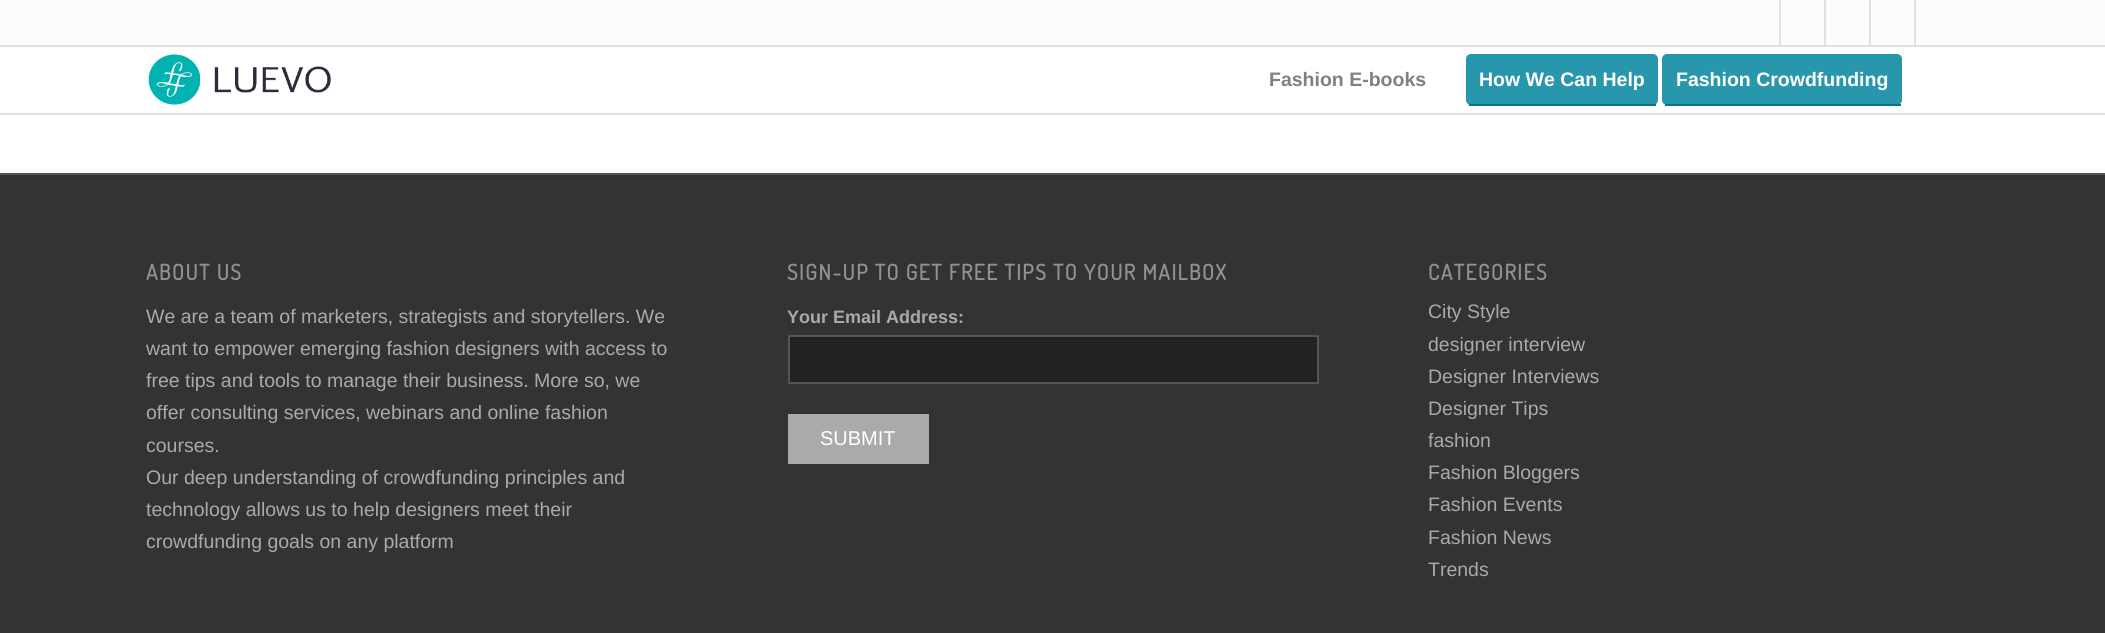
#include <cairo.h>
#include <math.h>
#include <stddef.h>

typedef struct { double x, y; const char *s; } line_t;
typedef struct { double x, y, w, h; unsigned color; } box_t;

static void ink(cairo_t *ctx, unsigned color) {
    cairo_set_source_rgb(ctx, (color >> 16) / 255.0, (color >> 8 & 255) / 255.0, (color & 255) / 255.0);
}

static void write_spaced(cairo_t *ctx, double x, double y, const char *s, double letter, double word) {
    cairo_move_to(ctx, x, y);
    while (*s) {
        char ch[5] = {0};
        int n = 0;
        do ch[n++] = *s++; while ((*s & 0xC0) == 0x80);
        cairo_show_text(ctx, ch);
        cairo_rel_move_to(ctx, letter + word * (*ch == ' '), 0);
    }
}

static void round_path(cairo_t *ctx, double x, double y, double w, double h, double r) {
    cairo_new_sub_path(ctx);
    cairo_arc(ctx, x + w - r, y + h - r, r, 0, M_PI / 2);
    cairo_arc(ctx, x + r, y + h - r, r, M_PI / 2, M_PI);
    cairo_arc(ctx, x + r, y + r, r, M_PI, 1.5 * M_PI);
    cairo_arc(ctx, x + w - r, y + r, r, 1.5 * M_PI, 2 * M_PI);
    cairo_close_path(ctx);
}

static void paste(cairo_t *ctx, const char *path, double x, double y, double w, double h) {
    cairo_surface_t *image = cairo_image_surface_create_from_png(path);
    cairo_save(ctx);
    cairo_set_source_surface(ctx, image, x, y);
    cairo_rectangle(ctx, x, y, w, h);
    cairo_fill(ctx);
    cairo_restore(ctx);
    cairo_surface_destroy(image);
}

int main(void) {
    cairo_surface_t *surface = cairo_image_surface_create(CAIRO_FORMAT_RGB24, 2105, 633);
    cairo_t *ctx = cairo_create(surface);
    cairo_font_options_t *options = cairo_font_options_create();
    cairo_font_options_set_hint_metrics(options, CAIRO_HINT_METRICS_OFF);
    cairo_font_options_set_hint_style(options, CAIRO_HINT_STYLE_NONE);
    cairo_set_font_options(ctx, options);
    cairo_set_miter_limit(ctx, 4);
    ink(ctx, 0xFFFFFF);
    cairo_paint(ctx);
    {
        static const box_t items[] = {
            {0, 0, 2105, 45, 0xFCFCFC},
            {0, 45, 2105, 2, 0xE1E1E1},
            {1779, 0, 2, 45, 0xE1E1E1},
            {1824, 0, 2, 45, 0xE1E1E1},
            {1869, 0, 2, 45, 0xE1E1E1},
            {1914, 0, 2, 45, 0xE1E1E1},
            {0, 113, 2105, 2, 0xE1E1E1},
        };
        for (size_t i = 0; i < sizeof items / sizeof *items; i++) {
            ink(ctx, items[i].color);
            cairo_rectangle(ctx, items[i].x, items[i].y, items[i].w, items[i].h);
            cairo_fill(ctx);
        }
    }
    paste(ctx, "media/1.png", 145, 47, 187, 59);
    cairo_select_font_face(ctx, "Liberation Sans", CAIRO_FONT_SLANT_NORMAL, CAIRO_FONT_WEIGHT_BOLD);
    cairo_set_font_size(ctx, 19.5);
    ink(ctx, 0x808080);
    cairo_move_to(ctx, 1269, 86);
    cairo_show_text(ctx, "Fashion E-books");
    ink(ctx, 0x2997AB);
    round_path(ctx, 1466, 54, 192, 51, 5);
    cairo_fill(ctx);
    ink(ctx, 0xFFFFFF);
    cairo_move_to(ctx, 1479, 86);
    cairo_show_text(ctx, "How We Can Help");
    ink(ctx, 0x077589);
    cairo_rectangle(ctx, 1469, 104, 187, 2);
    cairo_fill(ctx);
    ink(ctx, 0x2997AB);
    round_path(ctx, 1662, 54, 240, 51, 5);
    cairo_fill(ctx);
    ink(ctx, 0xFFFFFF);
    cairo_move_to(ctx, 1676, 86);
    cairo_show_text(ctx, "Fashion Crowdfunding");
    {
        static const box_t items[] = {
            {1665, 104, 236, 2, 0x077589},
            {0, 175, 2105, 458, 0x333333},
            {0, 173, 2105, 2, 0x555555},
        };
        for (size_t i = 0; i < sizeof items / sizeof *items; i++) {
            ink(ctx, items[i].color);
            cairo_rectangle(ctx, items[i].x, items[i].y, items[i].w, items[i].h);
            cairo_fill(ctx);
        }
    }
    cairo_select_font_face(ctx, "Dosis", CAIRO_FONT_SLANT_NORMAL, CAIRO_FONT_WEIGHT_BOLD);
    cairo_set_font_size(ctx, 21.45);
    ink(ctx, 0x919191);
    write_spaced(ctx, 146, 280, "ABOUT US", 1.5, 0);
    cairo_select_font_face(ctx, "Liberation Sans", CAIRO_FONT_SLANT_NORMAL, CAIRO_FONT_WEIGHT_NORMAL);
    cairo_set_font_size(ctx, 19.5);
    ink(ctx, 0xAAAAAA);
    {
        static const line_t items[] = {
            {146, 323, "We are a team of marketers, strategists and storytellers. We"},
            {146, 355, "want to empower emerging fashion designers with access to"},
            {146, 387, "free tips and tools to manage their business. More so, we"},
            {146, 419, "offer consulting services, webinars and online fashion"},
            {146, 452, "courses."},
            {146, 484, "Our deep understanding of crowdfunding principles and"},
            {146, 516, "technology allows us to help designers meet their"},
            {146, 548, "crowdfunding goals on any platform"},
        };
        for (size_t i = 0; i < sizeof items / sizeof *items; i++) {
            cairo_move_to(ctx, items[i].x, items[i].y);
            cairo_show_text(ctx, items[i].s);
        }
    }
    cairo_select_font_face(ctx, "Dosis", CAIRO_FONT_SLANT_NORMAL, CAIRO_FONT_WEIGHT_BOLD);
    cairo_set_font_size(ctx, 21.45);
    ink(ctx, 0x919191);
    write_spaced(ctx, 787, 280, "SIGN-UP TO GET FREE TIPS TO YOUR MAILBOX", 1.5, 0);
    cairo_select_font_face(ctx, "Liberation Sans", CAIRO_FONT_SLANT_NORMAL, CAIRO_FONT_WEIGHT_BOLD);
    cairo_set_font_size(ctx, 18);
    ink(ctx, 0xAAAAAA);
    cairo_move_to(ctx, 787, 323);
    cairo_show_text(ctx, "Your Email Address:");
    ink(ctx, 0x222222);
    cairo_rectangle(ctx, 789, 336, 529, 47);
    cairo_fill_preserve(ctx);
    ink(ctx, 0x555555);
    cairo_stroke(ctx);
    ink(ctx, 0xAAAAAA);
    cairo_rectangle(ctx, 788, 414, 141, 50);
    cairo_fill(ctx);
    cairo_select_font_face(ctx, "Liberation Sans", CAIRO_FONT_SLANT_NORMAL, CAIRO_FONT_WEIGHT_NORMAL);
    cairo_set_font_size(ctx, 20);
    ink(ctx, 0xFFFFFF);
    cairo_move_to(ctx, 820, 445);
    cairo_show_text(ctx, "SUBMIT");
    cairo_select_font_face(ctx, "Dosis", CAIRO_FONT_SLANT_NORMAL, CAIRO_FONT_WEIGHT_BOLD);
    cairo_set_font_size(ctx, 21.45);
    ink(ctx, 0x919191);
    write_spaced(ctx, 1428, 280, "CATEGORIES", 1.5, 0);
    cairo_select_font_face(ctx, "Liberation Sans", CAIRO_FONT_SLANT_NORMAL, CAIRO_FONT_WEIGHT_NORMAL);
    cairo_set_font_size(ctx, 19.5);
    ink(ctx, 0xAAAAAA);
    {
        static const line_t items[] = {
            {1428, 318, "City Style"},
            {1428, 351, "designer interview"},
            {1428, 383, "Designer Interviews"},
            {1428, 415, "Designer Tips"},
            {1428, 447, "fashion"},
            {1428, 479, "Fashion Bloggers"},
            {1428, 511, "Fashion Events"},
            {1428, 544, "Fashion News"},
            {1428, 576, "Trends"},
        };
        for (size_t i = 0; i < sizeof items / sizeof *items; i++) {
            cairo_move_to(ctx, items[i].x, items[i].y);
            cairo_show_text(ctx, items[i].s);
        }
    }
    cairo_surface_write_to_png(surface, "image.png");
    cairo_font_options_destroy(options);
    cairo_destroy(ctx);
    cairo_surface_destroy(surface);
    return 0;
}
